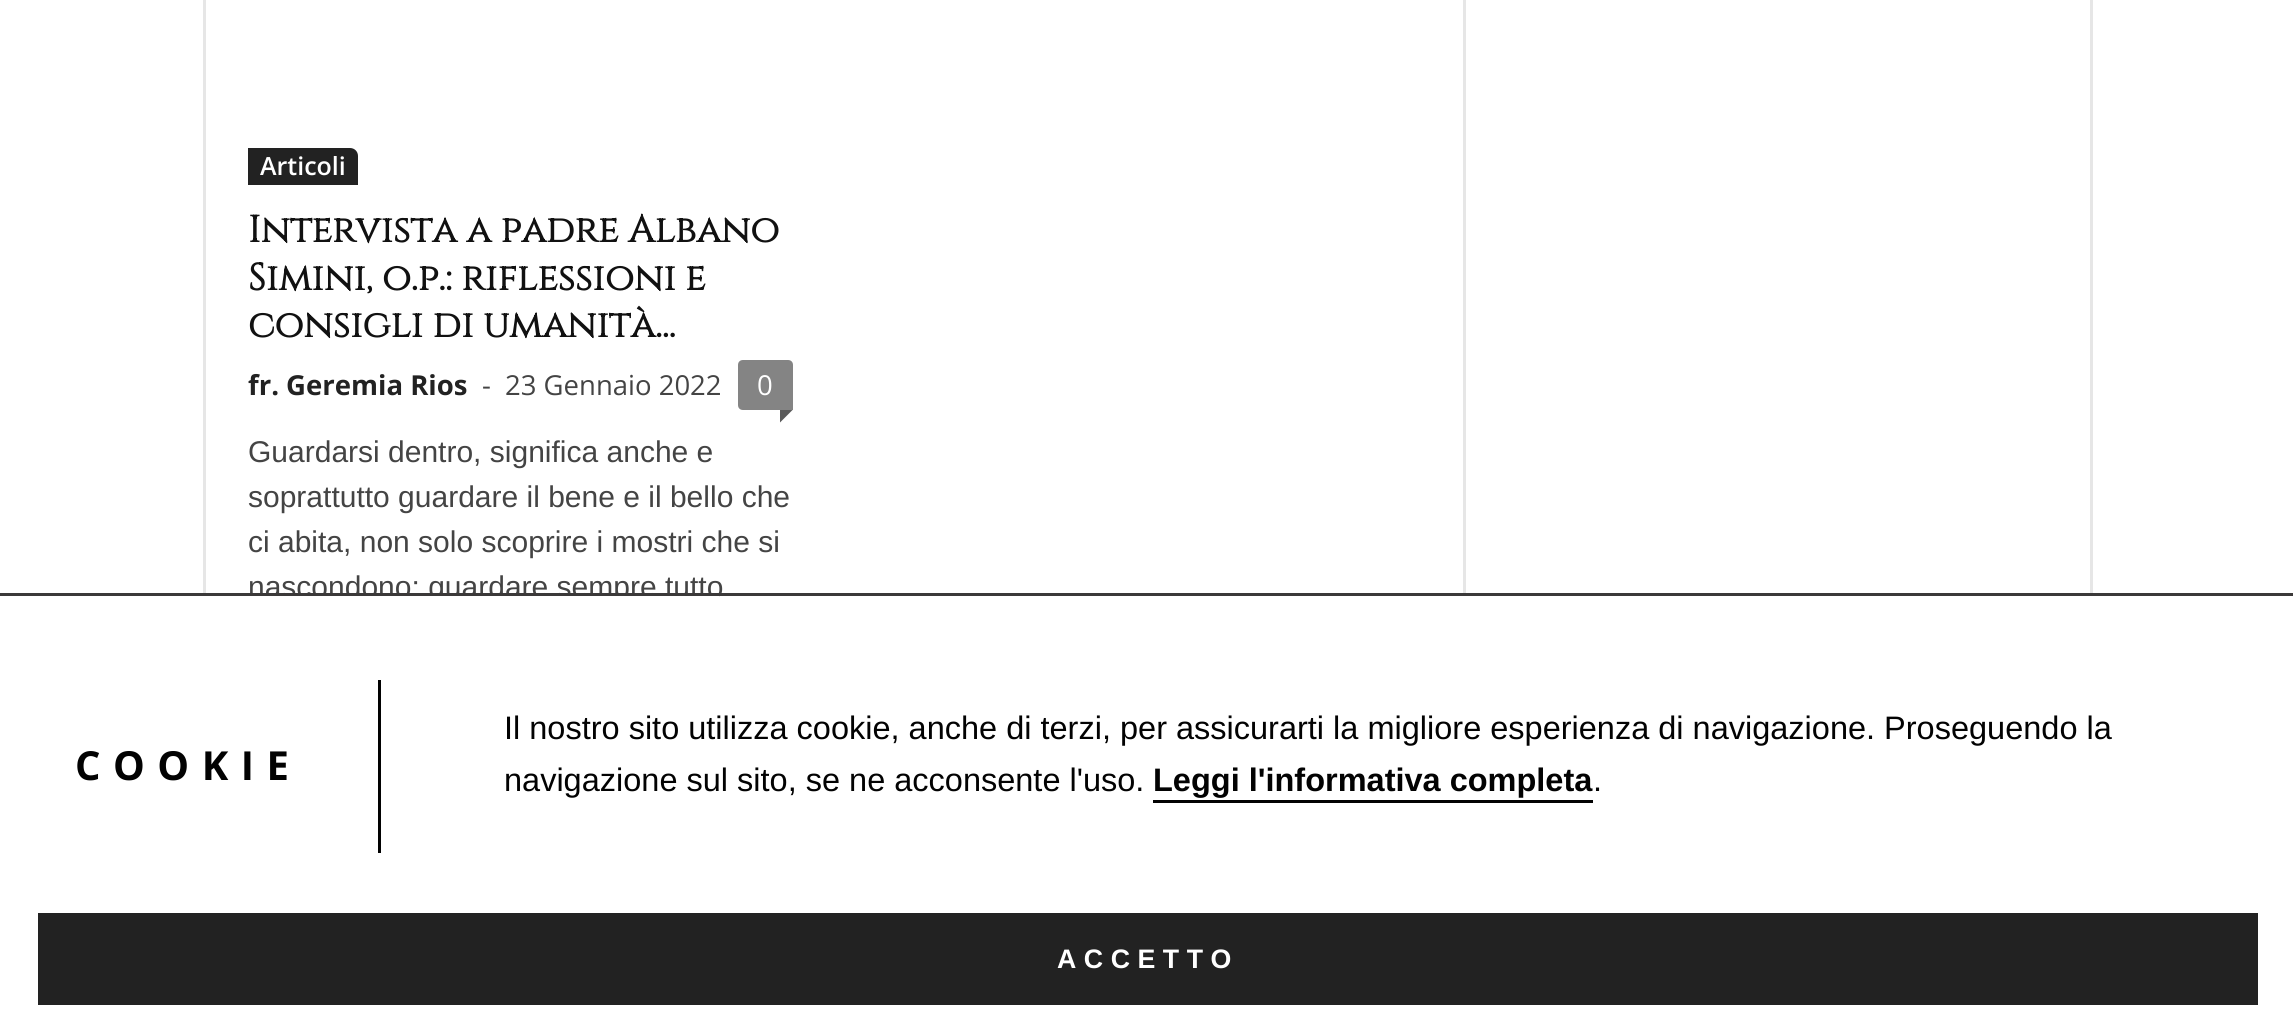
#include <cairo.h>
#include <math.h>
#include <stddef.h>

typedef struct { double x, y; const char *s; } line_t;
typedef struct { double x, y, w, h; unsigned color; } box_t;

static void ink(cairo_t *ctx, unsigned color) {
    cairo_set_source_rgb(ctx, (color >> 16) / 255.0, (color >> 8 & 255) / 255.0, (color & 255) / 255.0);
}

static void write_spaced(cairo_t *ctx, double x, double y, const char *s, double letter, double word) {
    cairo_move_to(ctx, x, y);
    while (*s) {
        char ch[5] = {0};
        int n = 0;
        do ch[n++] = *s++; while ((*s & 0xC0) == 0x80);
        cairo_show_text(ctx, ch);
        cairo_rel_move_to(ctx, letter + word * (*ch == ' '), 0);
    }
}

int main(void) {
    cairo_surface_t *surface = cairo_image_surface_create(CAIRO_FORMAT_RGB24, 2293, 1029);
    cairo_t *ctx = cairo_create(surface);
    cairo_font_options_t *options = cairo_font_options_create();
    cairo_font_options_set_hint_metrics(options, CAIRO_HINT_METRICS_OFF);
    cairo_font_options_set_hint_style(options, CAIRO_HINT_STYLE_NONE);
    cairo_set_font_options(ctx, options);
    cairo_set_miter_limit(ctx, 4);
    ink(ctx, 0xFFFFFF);
    cairo_paint(ctx);
    ink(ctx, 0xE6E6E6);
    cairo_rectangle(ctx, 203, 0, 3, 593);
    cairo_fill(ctx);
    ink(ctx, 0x222222);
    cairo_new_path(ctx);
    cairo_move_to(ctx, 248, 148);
    cairo_line_to(ctx, 350, 148);
    cairo_curve_to(ctx, 354.5, 148, 358, 151.5, 358, 156);
    cairo_line_to(ctx, 358, 185);
    cairo_line_to(ctx, 248, 185);
    cairo_close_path(ctx);
    cairo_fill(ctx);
    cairo_select_font_face(ctx, "Open Sans SemiBold", CAIRO_FONT_SLANT_NORMAL, CAIRO_FONT_WEIGHT_NORMAL);
    cairo_set_font_size(ctx, 25);
    ink(ctx, 0xFFFFFF);
    cairo_move_to(ctx, 260, 175);
    cairo_show_text(ctx, "Articoli");
    cairo_select_font_face(ctx, "Cinzel", CAIRO_FONT_SLANT_NORMAL, CAIRO_FONT_WEIGHT_BOLD);
    cairo_set_font_size(ctx, 37.5);
    ink(ctx, 0x111111);
    {
        static const line_t items[] = {
            {248, 242, "Intervista a padre Albano"},
            {248, 290, "Simini, o.p.: riflessioni e"},
            {248, 337, "consigli di umanità..."},
        };
        for (size_t i = 0; i < sizeof items / sizeof *items; i++) {
            cairo_move_to(ctx, items[i].x, items[i].y);
            cairo_show_text(ctx, items[i].s);
        }
    }
    cairo_select_font_face(ctx, "Open Sans", CAIRO_FONT_SLANT_NORMAL, CAIRO_FONT_WEIGHT_BOLD);
    cairo_set_font_size(ctx, 27.5);
    ink(ctx, 0x222222);
    cairo_move_to(ctx, 248, 395);
    cairo_show_text(ctx, "fr. Geremia Rios");
    cairo_select_font_face(ctx, "Open Sans", CAIRO_FONT_SLANT_NORMAL, CAIRO_FONT_WEIGHT_NORMAL);
    ink(ctx, 0x444444);
    cairo_move_to(ctx, 482, 395);
    cairo_show_text(ctx, "-");
    cairo_move_to(ctx, 505, 395);
    cairo_show_text(ctx, "23 Gennaio 2022");
    ink(ctx, 0x848484);
    cairo_new_path(ctx);
    cairo_move_to(ctx, 743, 360);
    cairo_line_to(ctx, 788, 360);
    cairo_curve_to(ctx, 791, 360, 793, 362, 793, 365);
    cairo_line_to(ctx, 793, 410);
    cairo_line_to(ctx, 743, 410);
    cairo_curve_to(ctx, 740, 410, 738, 408, 738, 405);
    cairo_line_to(ctx, 738, 365);
    cairo_curve_to(ctx, 738, 362, 740, 360, 743, 360);
    cairo_close_path(ctx);
    cairo_fill(ctx);
    ink(ctx, 0xFFFFFF);
    cairo_move_to(ctx, 757, 395);
    cairo_show_text(ctx, "0");
    ink(ctx, 0x5B5B5B);
    cairo_new_path(ctx);
    cairo_move_to(ctx, 780, 410);
    cairo_line_to(ctx, 792.5, 410);
    cairo_line_to(ctx, 780, 422.5);
    cairo_close_path(ctx);
    cairo_fill(ctx);
    cairo_select_font_face(ctx, "Liberation Sans", CAIRO_FONT_SLANT_NORMAL, CAIRO_FONT_WEIGHT_NORMAL);
    cairo_set_font_size(ctx, 30);
    ink(ctx, 0x444444);
    {
        static const line_t items[] = {
            {248, 462, "Guardarsi dentro, significa anche e"},
            {248, 507, "soprattutto guardare il bene e il bello che"},
            {248, 552, "ci abita, non solo scoprire i mostri che si"},
            {248, 597, "nascondono: guardare sempre tutto"},
        };
        for (size_t i = 0; i < sizeof items / sizeof *items; i++) {
            cairo_move_to(ctx, items[i].x, items[i].y);
            cairo_show_text(ctx, items[i].s);
        }
    }
    {
        static const box_t items[] = {
            {1463, 0, 3, 593, 0xE6E6E6},
            {2090, 0, 3, 593, 0xE6E6E6},
            {249, 596, 470, 8, 0xFFFFFF},
            {0, 593, 2293, 3, 0x3B3939},
            {378, 680, 3, 173, 0x020202},
        };
        for (size_t i = 0; i < sizeof items / sizeof *items; i++) {
            ink(ctx, items[i].color);
            cairo_rectangle(ctx, items[i].x, items[i].y, items[i].w, items[i].h);
            cairo_fill(ctx);
        }
    }
    cairo_select_font_face(ctx, "Open Sans", CAIRO_FONT_SLANT_NORMAL, CAIRO_FONT_WEIGHT_BOLD);
    cairo_set_font_size(ctx, 40);
    write_spaced(ctx, 75, 780, "COOKIE", 12.5, 0);
    cairo_select_font_face(ctx, "Liberation Sans", CAIRO_FONT_SLANT_NORMAL, CAIRO_FONT_WEIGHT_NORMAL);
    cairo_set_font_size(ctx, 32.5);
    cairo_move_to(ctx, 504, 739);
    cairo_show_text(ctx, "Il nostro sito utilizza cookie, anche di terzi, per assicurarti la migliore esperienza di navigazione. Proseguendo la");
    cairo_move_to(ctx, 504, 791);
    cairo_show_text(ctx, "navigazione sul sito, se ne acconsente l'uso.");
    cairo_select_font_face(ctx, "Liberation Sans", CAIRO_FONT_SLANT_NORMAL, CAIRO_FONT_WEIGHT_BOLD);
    cairo_move_to(ctx, 1153, 791);
    cairo_show_text(ctx, "Leggi l'informativa completa");
    cairo_rectangle(ctx, 1153, 800, 440, 3);
    cairo_fill(ctx);
    cairo_select_font_face(ctx, "Liberation Sans", CAIRO_FONT_SLANT_NORMAL, CAIRO_FONT_WEIGHT_NORMAL);
    cairo_move_to(ctx, 1593, 791);
    cairo_show_text(ctx, ".");
    ink(ctx, 0x222222);
    cairo_rectangle(ctx, 38, 913, 2220, 92);
    cairo_fill(ctx);
    cairo_select_font_face(ctx, "Liberation Sans", CAIRO_FONT_SLANT_NORMAL, CAIRO_FONT_WEIGHT_BOLD);
    cairo_set_font_size(ctx, 26.75);
    ink(ctx, 0xFFFFFF);
    write_spaced(ctx, 1057, 968, "ACCETTO", 7.5, 0);
    cairo_surface_write_to_png(surface, "image.png");
    cairo_font_options_destroy(options);
    cairo_destroy(ctx);
    cairo_surface_destroy(surface);
    return 0;
}
